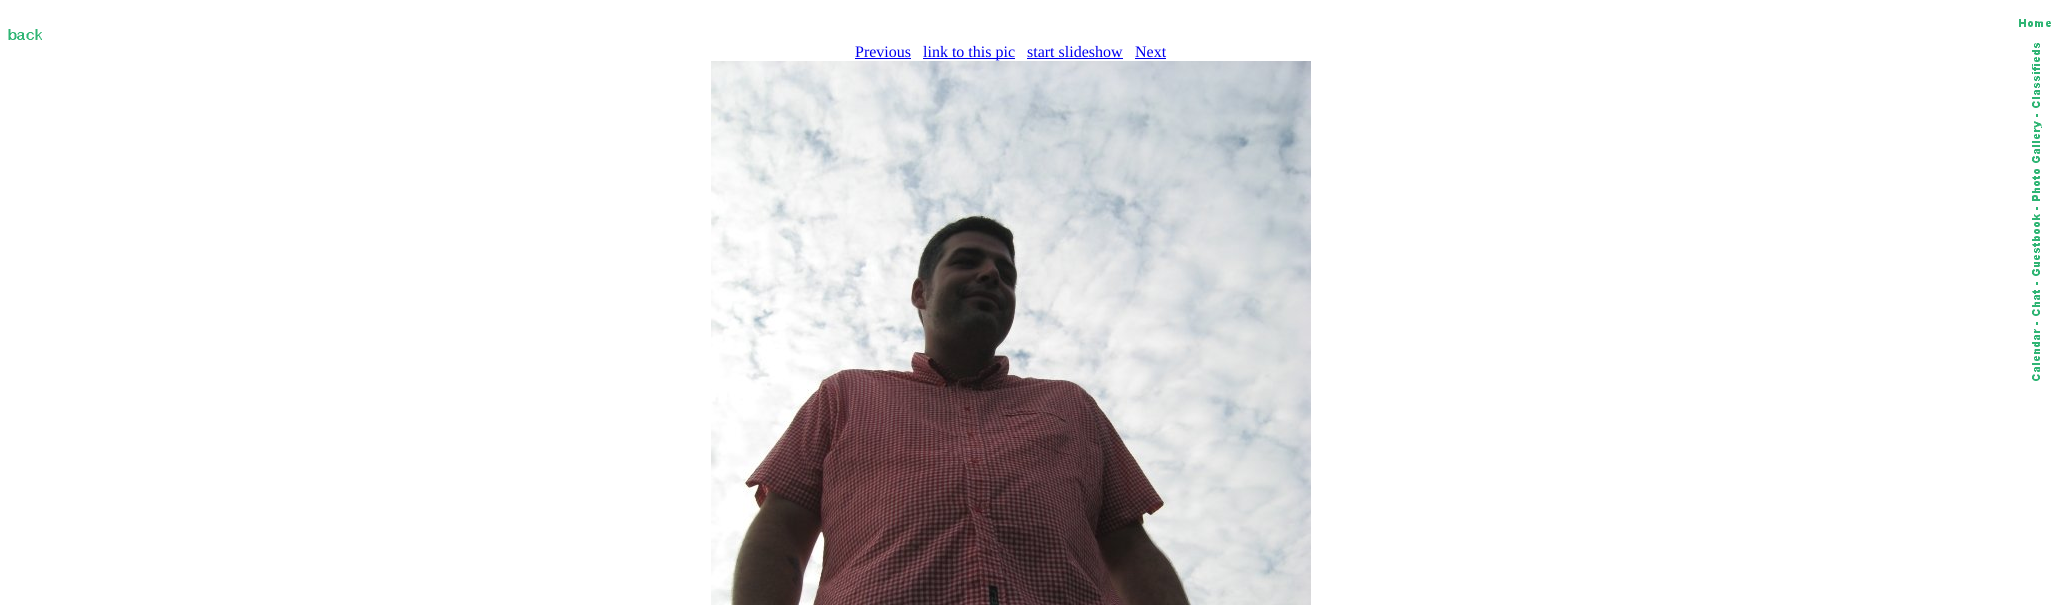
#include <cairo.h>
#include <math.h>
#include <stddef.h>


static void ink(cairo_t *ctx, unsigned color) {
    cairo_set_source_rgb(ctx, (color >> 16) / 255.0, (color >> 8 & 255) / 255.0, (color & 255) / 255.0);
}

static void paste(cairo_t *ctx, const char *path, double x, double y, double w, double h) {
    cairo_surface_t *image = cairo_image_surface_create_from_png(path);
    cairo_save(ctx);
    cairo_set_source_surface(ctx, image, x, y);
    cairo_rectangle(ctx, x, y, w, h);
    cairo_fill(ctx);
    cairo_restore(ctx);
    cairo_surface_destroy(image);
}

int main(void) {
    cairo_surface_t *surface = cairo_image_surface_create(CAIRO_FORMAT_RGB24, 2065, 605);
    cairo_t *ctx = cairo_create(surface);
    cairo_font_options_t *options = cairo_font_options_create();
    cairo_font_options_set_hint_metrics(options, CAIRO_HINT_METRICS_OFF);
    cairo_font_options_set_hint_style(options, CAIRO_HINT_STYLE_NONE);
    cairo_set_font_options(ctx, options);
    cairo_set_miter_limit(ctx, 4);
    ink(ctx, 0xFFFFFF);
    cairo_paint(ctx);
    paste(ctx, "media/1.png", 8, 29, 34, 11);
    paste(ctx, "media/2.png", 2019, 19, 32, 8);
    paste(ctx, "media/3.png", 2032, 43, 10, 338);
    cairo_select_font_face(ctx, "Liberation Serif", CAIRO_FONT_SLANT_NORMAL, CAIRO_FONT_WEIGHT_NORMAL);
    cairo_set_font_size(ctx, 16);
    ink(ctx, 0x0000EE);
    cairo_move_to(ctx, 855, 57);
    cairo_show_text(ctx, "Previous");
    cairo_rectangle(ctx, 855, 58, 56, 1);
    cairo_fill(ctx);
    cairo_rectangle(ctx, 923, 58, 92, 1);
    cairo_fill(ctx);
    cairo_move_to(ctx, 923, 57);
    cairo_show_text(ctx, "link to this pic");
    cairo_move_to(ctx, 1027, 57);
    cairo_show_text(ctx, "start slideshow");
    cairo_rectangle(ctx, 1027, 58, 96, 1);
    cairo_fill(ctx);
    cairo_move_to(ctx, 1135, 57);
    cairo_show_text(ctx, "Next");
    cairo_rectangle(ctx, 1135, 58, 31, 1);
    cairo_fill(ctx);
    paste(ctx, "media/4.png", 711, 61, 600, 544);
    cairo_surface_write_to_png(surface, "image.png");
    cairo_font_options_destroy(options);
    cairo_destroy(ctx);
    cairo_surface_destroy(surface);
    return 0;
}
